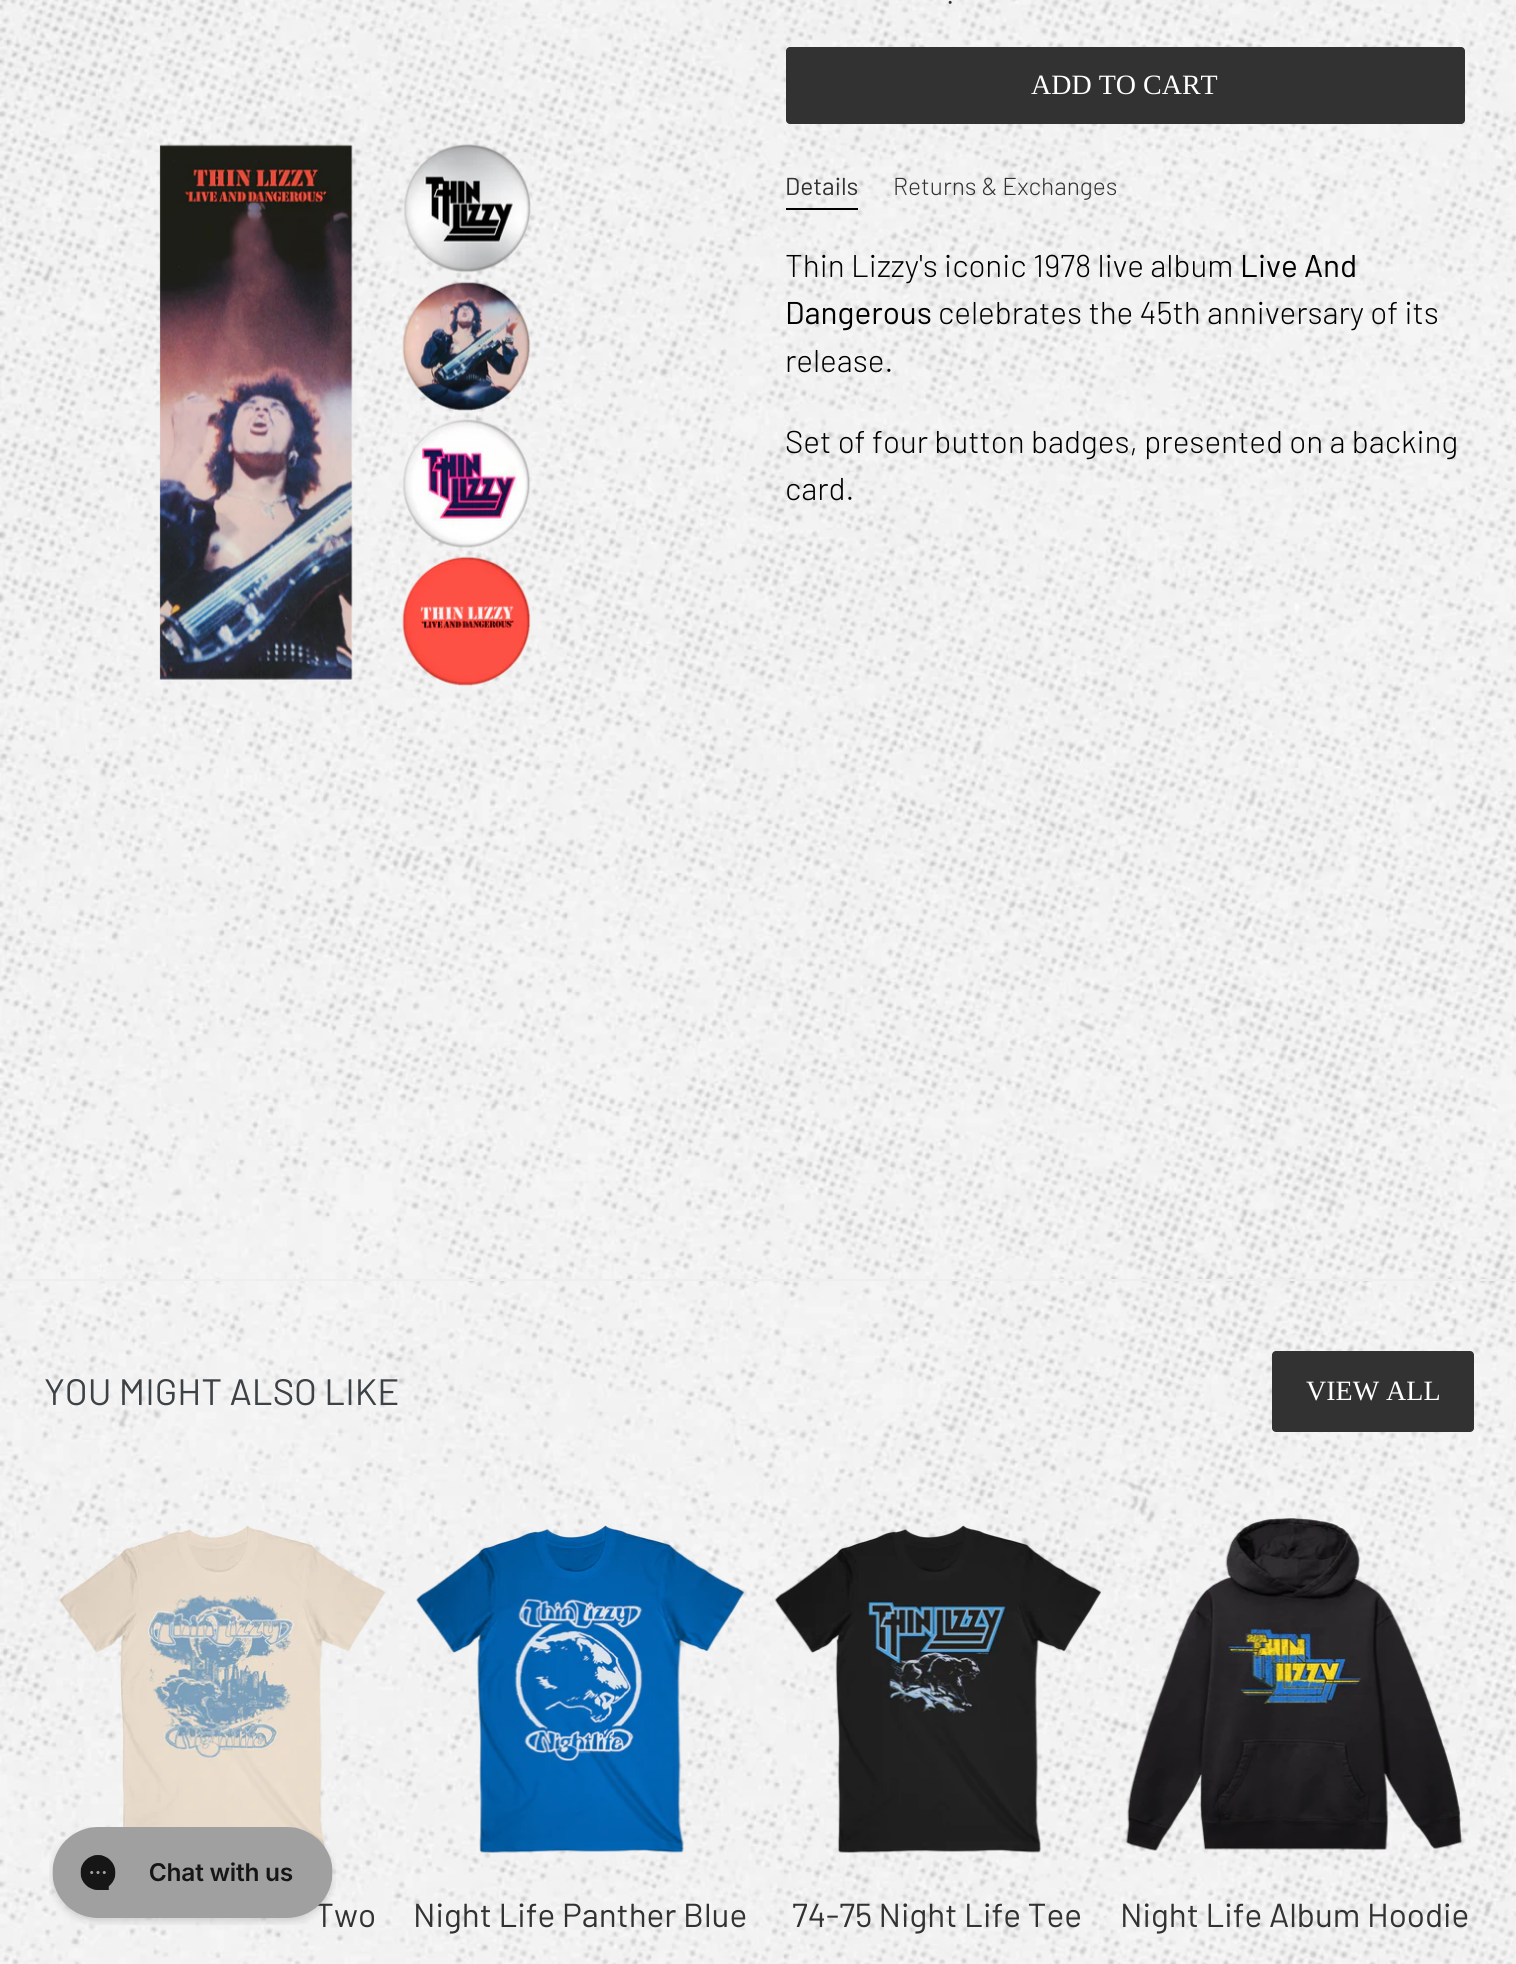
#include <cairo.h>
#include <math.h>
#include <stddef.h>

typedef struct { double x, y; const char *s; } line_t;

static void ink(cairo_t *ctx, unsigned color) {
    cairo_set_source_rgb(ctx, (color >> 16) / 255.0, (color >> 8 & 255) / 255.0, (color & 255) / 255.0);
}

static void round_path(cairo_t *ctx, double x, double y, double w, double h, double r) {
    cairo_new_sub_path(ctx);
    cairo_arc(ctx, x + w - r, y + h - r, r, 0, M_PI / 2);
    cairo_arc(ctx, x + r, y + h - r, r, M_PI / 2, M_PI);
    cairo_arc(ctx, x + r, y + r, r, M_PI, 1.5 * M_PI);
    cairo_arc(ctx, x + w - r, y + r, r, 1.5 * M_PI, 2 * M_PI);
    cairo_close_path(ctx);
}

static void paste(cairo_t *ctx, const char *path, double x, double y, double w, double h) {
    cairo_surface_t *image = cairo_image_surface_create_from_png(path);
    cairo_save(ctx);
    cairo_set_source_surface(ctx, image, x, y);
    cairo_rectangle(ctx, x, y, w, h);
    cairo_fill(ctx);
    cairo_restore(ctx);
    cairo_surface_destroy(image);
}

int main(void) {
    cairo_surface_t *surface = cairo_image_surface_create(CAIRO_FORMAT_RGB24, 1516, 1964);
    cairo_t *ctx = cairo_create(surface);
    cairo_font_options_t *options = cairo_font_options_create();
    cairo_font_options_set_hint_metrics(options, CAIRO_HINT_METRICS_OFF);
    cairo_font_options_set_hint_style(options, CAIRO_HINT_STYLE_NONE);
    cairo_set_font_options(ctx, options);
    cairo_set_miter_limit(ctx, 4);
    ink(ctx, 0xFFFFFF);
    cairo_paint(ctx);
    paste(ctx, "media/1.png", 0, 0, 1516, 1964);
    ink(ctx, 0xEEEEEE);
    cairo_rectangle(ctx, 0, 1279, 1516, 2);
    cairo_fill(ctx);
    paste(ctx, "media/2.png", 159, 143, 372, 543);
    cairo_select_font_face(ctx, "Barlow Light", CAIRO_FONT_SLANT_NORMAL, CAIRO_FONT_WEIGHT_NORMAL);
    cairo_set_font_size(ctx, 30);
    ink(ctx, 0x323232);
    cairo_move_to(ctx, 946, 4);
    cairo_show_text(ctx, ".");
    round_path(ctx, 786, 47, 679, 77, 4);
    cairo_fill(ctx);
    cairo_select_font_face(ctx, "Liberation Serif", CAIRO_FONT_SLANT_NORMAL, CAIRO_FONT_WEIGHT_NORMAL);
    cairo_set_font_size(ctx, 28);
    ink(ctx, 0xFFFFFF);
    cairo_move_to(ctx, 1031, 94);
    cairo_show_text(ctx, "ADD TO CART");
    cairo_select_font_face(ctx, "Barlow", CAIRO_FONT_SLANT_NORMAL, CAIRO_FONT_WEIGHT_NORMAL);
    cairo_set_font_size(ctx, 24.5);
    ink(ctx, 0x323232);
    cairo_move_to(ctx, 785, 195);
    cairo_show_text(ctx, "Details");
    ink(ctx, 0x000000);
    cairo_rectangle(ctx, 786, 208, 72, 2);
    cairo_fill(ctx);
    cairo_select_font_face(ctx, "Barlow Light", CAIRO_FONT_SLANT_NORMAL, CAIRO_FONT_WEIGHT_NORMAL);
    ink(ctx, 0x323232);
    cairo_move_to(ctx, 893, 195);
    cairo_show_text(ctx, "Returns & Exchanges");
    cairo_set_font_size(ctx, 31.5);
    ink(ctx, 0x000000);
    cairo_move_to(ctx, 785, 277);
    cairo_show_text(ctx, "Thin Lizzy's iconic 1978 live album");
    cairo_select_font_face(ctx, "Barlow", CAIRO_FONT_SLANT_NORMAL, CAIRO_FONT_WEIGHT_NORMAL);
    cairo_move_to(ctx, 1240, 277);
    cairo_show_text(ctx, "Live And");
    cairo_move_to(ctx, 785, 324);
    cairo_show_text(ctx, "Dangerous");
    cairo_select_font_face(ctx, "Barlow Light", CAIRO_FONT_SLANT_NORMAL, CAIRO_FONT_WEIGHT_NORMAL);
    {
        static const line_t items[] = {
            {938, 324, "celebrates the 45th anniversary of its"},
            {785, 372, "release."},
            {785, 453, "Set of four button badges, presented on a backing"},
            {785, 500, "card."},
        };
        for (size_t i = 0; i < sizeof items / sizeof *items; i++) {
            cairo_move_to(ctx, items[i].x, items[i].y);
            cairo_show_text(ctx, items[i].s);
        }
    }
    cairo_select_font_face(ctx, "Barlow", CAIRO_FONT_SLANT_NORMAL, CAIRO_FONT_WEIGHT_NORMAL);
    cairo_set_font_size(ctx, 36.75);
    ink(ctx, 0x3D4246);
    cairo_move_to(ctx, 44, 1405);
    cairo_show_text(ctx, "YOU MIGHT ALSO LIKE");
    ink(ctx, 0x323232);
    round_path(ctx, 1272, 1351, 202, 81, 4);
    cairo_fill(ctx);
    cairo_select_font_face(ctx, "Liberation Serif", CAIRO_FONT_SLANT_NORMAL, CAIRO_FONT_WEIGHT_NORMAL);
    cairo_set_font_size(ctx, 28);
    ink(ctx, 0xFFFFFF);
    cairo_move_to(ctx, 1306, 1400);
    cairo_show_text(ctx, "VIEW ALL");
    paste(ctx, "media/3.png", 59, 1526, 326, 323);
    cairo_select_font_face(ctx, "Barlow", CAIRO_FONT_SLANT_NORMAL, CAIRO_FONT_WEIGHT_NORMAL);
    cairo_set_font_size(ctx, 33.25);
    ink(ctx, 0x323232);
    cairo_move_to(ctx, 315, 1927);
    cairo_show_text(ctx, "Two");
    paste(ctx, "media/4.png", 416, 1525, 328, 328);
    cairo_move_to(ctx, 413, 1927);
    cairo_show_text(ctx, "Night Life Panther Blue");
    paste(ctx, "media/5.png", 774, 1525, 327, 328);
    cairo_move_to(ctx, 792, 1927);
    cairo_show_text(ctx, "74-75 Night Life Tee");
    paste(ctx, "media/6.png", 1125, 1518, 337, 333);
    cairo_move_to(ctx, 1120, 1927);
    cairo_show_text(ctx, "Night Life Album Hoodie");
    paste(ctx, "media/7.png", 49, 1827, 287, 98);
    cairo_surface_write_to_png(surface, "image.png");
    cairo_font_options_destroy(options);
    cairo_destroy(ctx);
    cairo_surface_destroy(surface);
    return 0;
}
